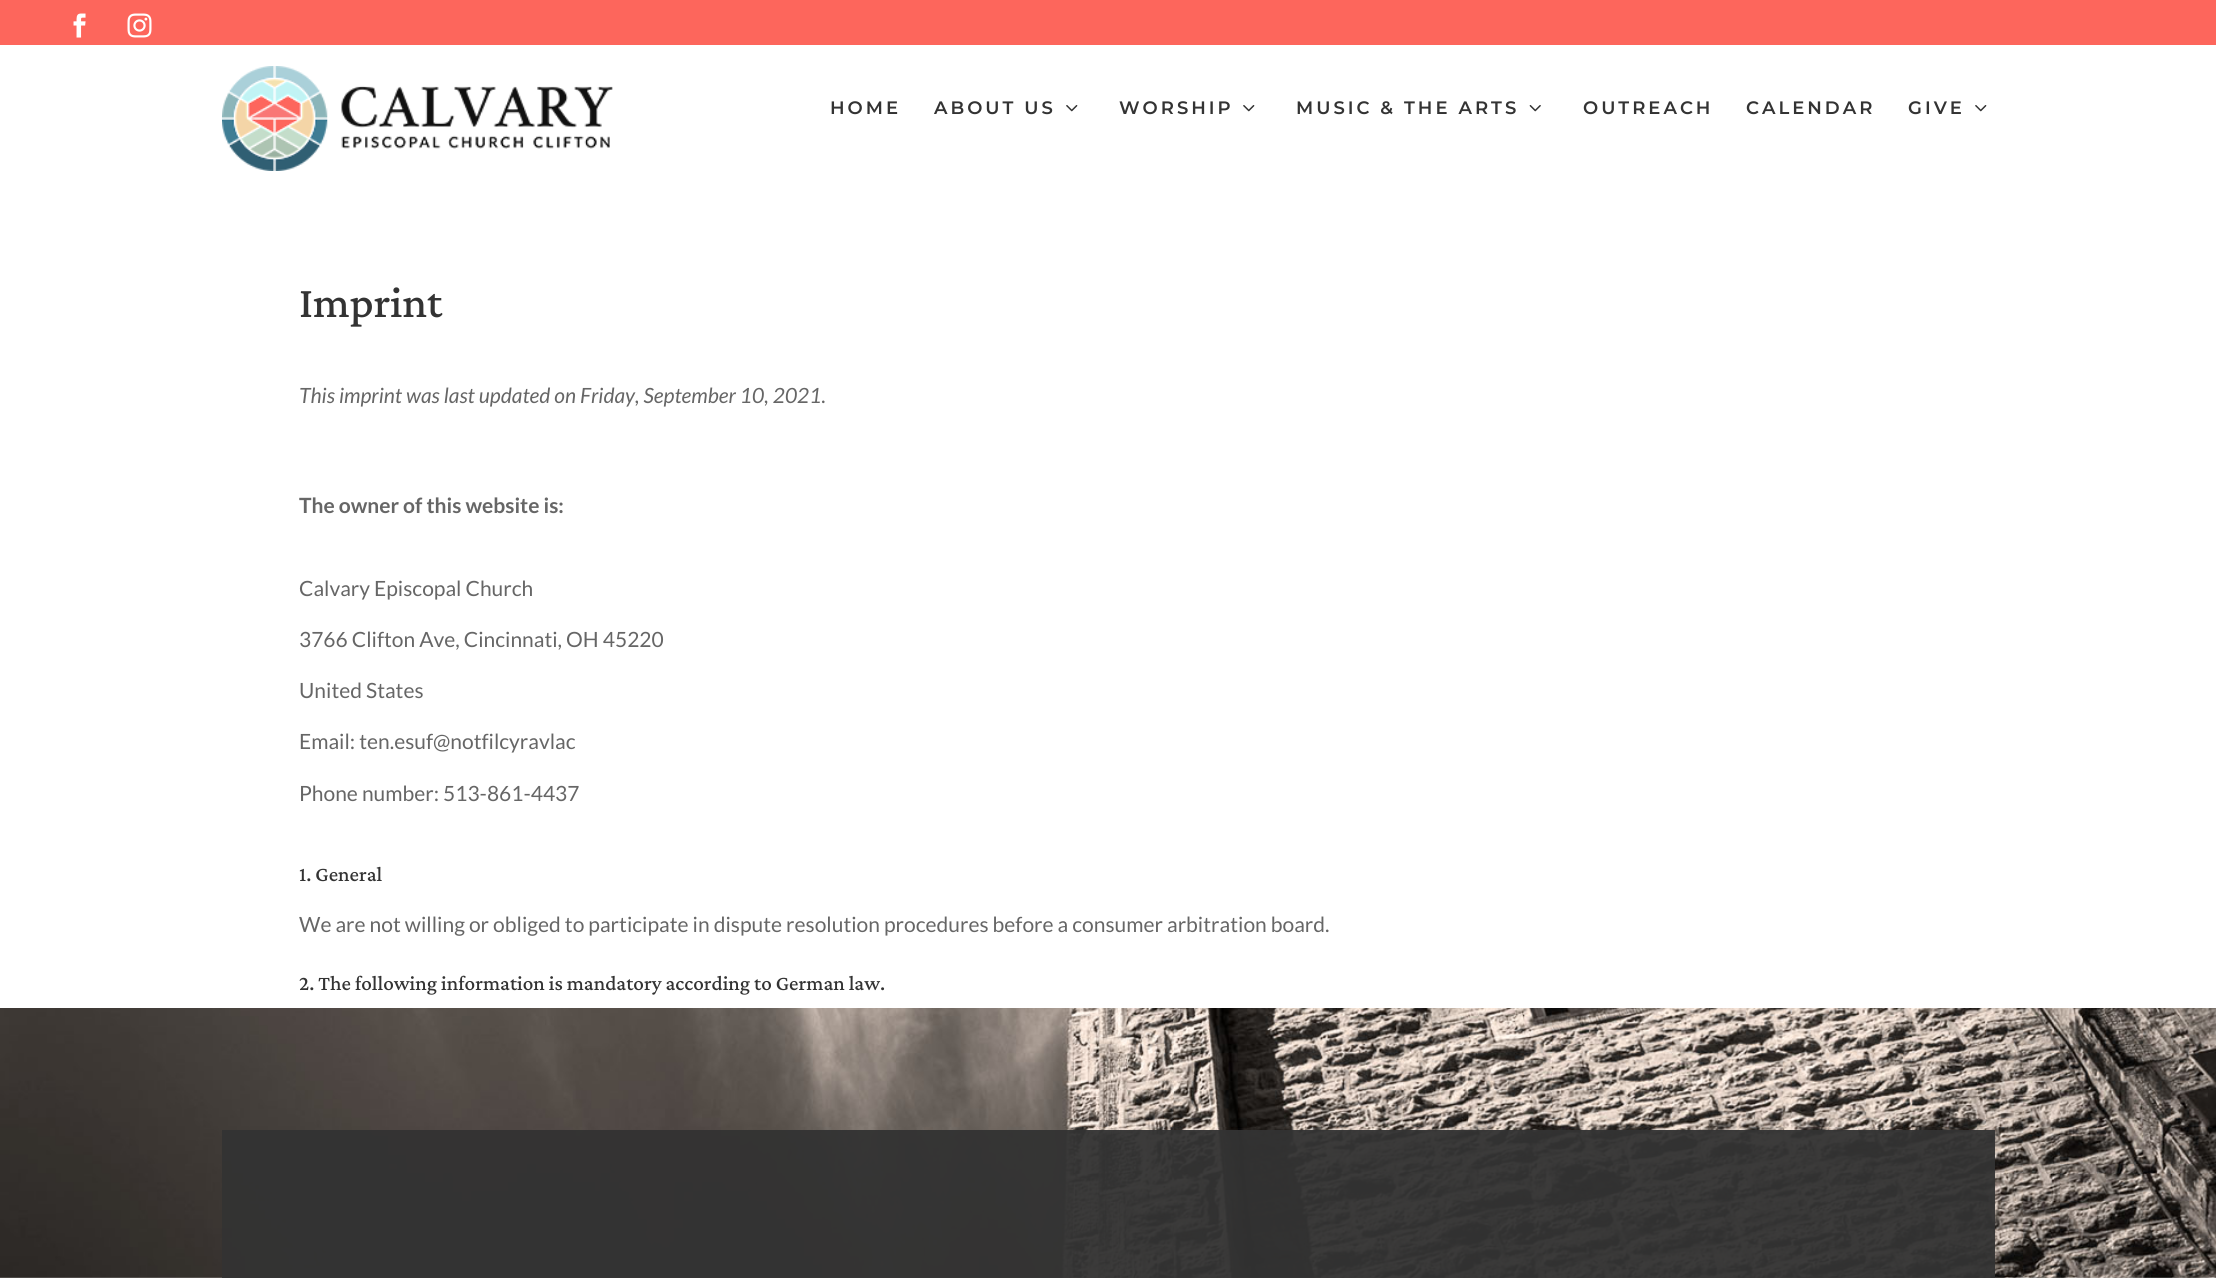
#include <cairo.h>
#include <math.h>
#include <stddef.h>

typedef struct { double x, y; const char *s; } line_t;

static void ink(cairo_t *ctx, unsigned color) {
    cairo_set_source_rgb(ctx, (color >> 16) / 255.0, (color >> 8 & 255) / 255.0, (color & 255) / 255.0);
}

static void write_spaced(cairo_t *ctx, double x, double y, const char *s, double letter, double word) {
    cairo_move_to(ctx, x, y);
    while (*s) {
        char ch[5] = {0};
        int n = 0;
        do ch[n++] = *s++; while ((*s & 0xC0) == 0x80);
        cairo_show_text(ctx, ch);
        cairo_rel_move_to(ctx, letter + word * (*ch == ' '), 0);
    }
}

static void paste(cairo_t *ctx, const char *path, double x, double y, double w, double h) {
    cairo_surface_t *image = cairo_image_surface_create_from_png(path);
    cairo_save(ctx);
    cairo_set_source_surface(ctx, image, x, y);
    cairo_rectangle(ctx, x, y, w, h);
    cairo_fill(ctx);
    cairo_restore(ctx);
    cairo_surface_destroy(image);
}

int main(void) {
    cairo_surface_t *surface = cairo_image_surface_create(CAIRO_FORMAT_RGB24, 2216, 1278);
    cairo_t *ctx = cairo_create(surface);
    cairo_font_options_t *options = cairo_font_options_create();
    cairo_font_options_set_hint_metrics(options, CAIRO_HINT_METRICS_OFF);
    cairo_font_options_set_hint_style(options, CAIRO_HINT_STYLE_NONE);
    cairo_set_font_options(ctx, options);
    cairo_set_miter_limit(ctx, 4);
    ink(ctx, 0xFFFFFF);
    cairo_paint(ctx);
    ink(ctx, 0xFD665C);
    cairo_rectangle(ctx, 0, 0, 2216, 45);
    cairo_fill(ctx);
    paste(ctx, "media/1.png", 73, 13, 13, 25);
    paste(ctx, "media/2.png", 127, 13, 25, 25);
    paste(ctx, "media/3.png", 222, 66, 391, 105);
    cairo_select_font_face(ctx, "Montserrat SemiBold", CAIRO_FONT_SLANT_NORMAL, CAIRO_FONT_WEIGHT_NORMAL);
    cairo_set_font_size(ctx, 18);
    ink(ctx, 0x333333);
    write_spaced(ctx, 830, 114, "HOME", 3, 0);
    write_spaced(ctx, 934, 114, "ABOUT US", 3, 0);
    paste(ctx, "media/4.png", 1066, 105, 12, 7);
    write_spaced(ctx, 1119, 114, "WORSHIP", 3, 0);
    paste(ctx, "media/4.png", 1243, 105, 12, 7);
    write_spaced(ctx, 1296, 114, "MUSIC & THE ARTS", 3, 0);
    paste(ctx, "media/5.png", 1529, 105, 12, 7);
    {
        static const line_t items[] = {
            {1583, 114, "OUTREACH"},
            {1746, 114, "CALENDAR"},
            {1908, 114, "GIVE"},
        };
        for (size_t i = 0; i < sizeof items / sizeof *items; i++) {
            write_spaced(ctx, items[i].x, items[i].y, items[i].s, 3, 0);
        }
    }
    paste(ctx, "media/4.png", 1975, 105, 12, 7);
    cairo_select_font_face(ctx, "Crimson Pro Medium", CAIRO_FONT_SLANT_NORMAL, CAIRO_FONT_WEIGHT_NORMAL);
    cairo_set_font_size(ctx, 45);
    cairo_move_to(ctx, 299, 317);
    cairo_show_text(ctx, "Imprint");
    cairo_select_font_face(ctx, "Lato", CAIRO_FONT_SLANT_ITALIC, CAIRO_FONT_WEIGHT_NORMAL);
    cairo_set_font_size(ctx, 21);
    ink(ctx, 0x666666);
    cairo_move_to(ctx, 299, 403);
    cairo_show_text(ctx, "This imprint was last updated on Friday, September 10, 2021.");
    cairo_select_font_face(ctx, "Lato", CAIRO_FONT_SLANT_NORMAL, CAIRO_FONT_WEIGHT_BOLD);
    cairo_move_to(ctx, 299, 513);
    cairo_show_text(ctx, "The owner of this website is:");
    cairo_select_font_face(ctx, "Lato", CAIRO_FONT_SLANT_NORMAL, CAIRO_FONT_WEIGHT_NORMAL);
    {
        static const line_t items[] = {
            {299, 596, "Calvary Episcopal Church"},
            {299, 647, "3766 Clifton Ave, Cincinnati, OH 45220"},
            {299, 698, "United States"},
            {299, 749, "Email: ten.esuf@notfilcyravlac"},
            {299, 801, "Phone number: 513-861-4437"},
        };
        for (size_t i = 0; i < sizeof items / sizeof *items; i++) {
            cairo_move_to(ctx, items[i].x, items[i].y);
            cairo_show_text(ctx, items[i].s);
        }
    }
    cairo_select_font_face(ctx, "Crimson Pro Medium", CAIRO_FONT_SLANT_NORMAL, CAIRO_FONT_WEIGHT_NORMAL);
    ink(ctx, 0x333333);
    cairo_move_to(ctx, 299, 881);
    cairo_show_text(ctx, "1. General");
    cairo_select_font_face(ctx, "Lato", CAIRO_FONT_SLANT_NORMAL, CAIRO_FONT_WEIGHT_NORMAL);
    ink(ctx, 0x666666);
    cairo_move_to(ctx, 299, 932);
    cairo_show_text(ctx, "We are not willing or obliged to participate in dispute resolution procedures before a consumer arbitration board.");
    cairo_select_font_face(ctx, "Crimson Pro Medium", CAIRO_FONT_SLANT_NORMAL, CAIRO_FONT_WEIGHT_NORMAL);
    ink(ctx, 0x333333);
    cairo_move_to(ctx, 299, 990);
    cairo_show_text(ctx, "2. The following information is mandatory according to German law.");
    paste(ctx, "media/6.png", 0, 1008, 2216, 270);
    cairo_set_source_rgba(ctx, 0.2, 0.2, 0.2, 0.95);
    cairo_rectangle(ctx, 222, 1130, 591, 148);
    cairo_fill(ctx);
    cairo_rectangle(ctx, 813, 1130, 591, 148);
    cairo_fill(ctx);
    cairo_rectangle(ctx, 1404, 1130, 591, 148);
    cairo_fill(ctx);
    cairo_surface_write_to_png(surface, "image.png");
    cairo_font_options_destroy(options);
    cairo_destroy(ctx);
    cairo_surface_destroy(surface);
    return 0;
}
